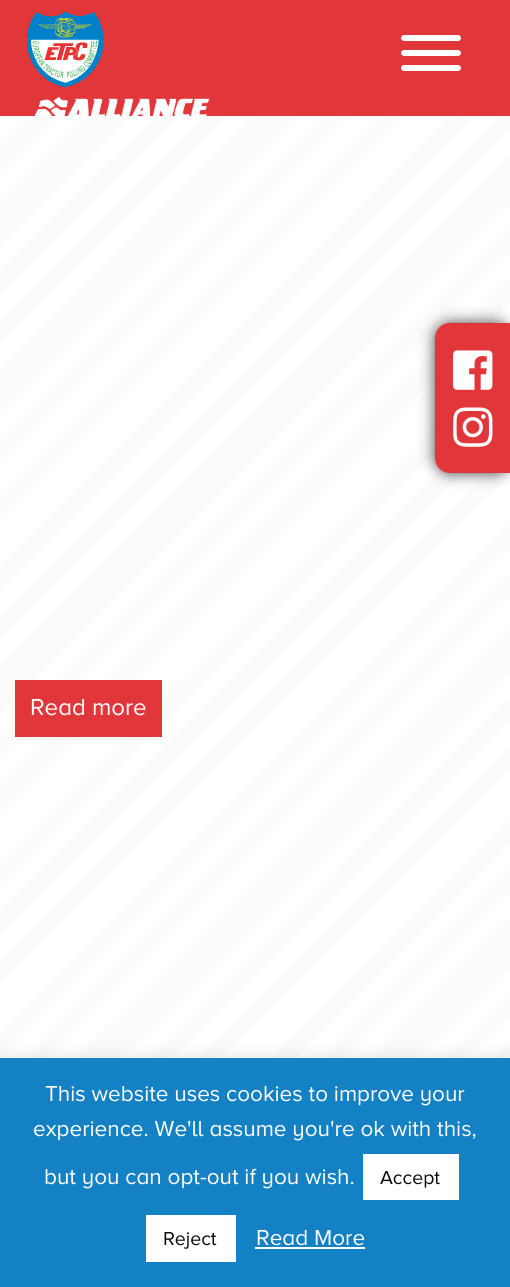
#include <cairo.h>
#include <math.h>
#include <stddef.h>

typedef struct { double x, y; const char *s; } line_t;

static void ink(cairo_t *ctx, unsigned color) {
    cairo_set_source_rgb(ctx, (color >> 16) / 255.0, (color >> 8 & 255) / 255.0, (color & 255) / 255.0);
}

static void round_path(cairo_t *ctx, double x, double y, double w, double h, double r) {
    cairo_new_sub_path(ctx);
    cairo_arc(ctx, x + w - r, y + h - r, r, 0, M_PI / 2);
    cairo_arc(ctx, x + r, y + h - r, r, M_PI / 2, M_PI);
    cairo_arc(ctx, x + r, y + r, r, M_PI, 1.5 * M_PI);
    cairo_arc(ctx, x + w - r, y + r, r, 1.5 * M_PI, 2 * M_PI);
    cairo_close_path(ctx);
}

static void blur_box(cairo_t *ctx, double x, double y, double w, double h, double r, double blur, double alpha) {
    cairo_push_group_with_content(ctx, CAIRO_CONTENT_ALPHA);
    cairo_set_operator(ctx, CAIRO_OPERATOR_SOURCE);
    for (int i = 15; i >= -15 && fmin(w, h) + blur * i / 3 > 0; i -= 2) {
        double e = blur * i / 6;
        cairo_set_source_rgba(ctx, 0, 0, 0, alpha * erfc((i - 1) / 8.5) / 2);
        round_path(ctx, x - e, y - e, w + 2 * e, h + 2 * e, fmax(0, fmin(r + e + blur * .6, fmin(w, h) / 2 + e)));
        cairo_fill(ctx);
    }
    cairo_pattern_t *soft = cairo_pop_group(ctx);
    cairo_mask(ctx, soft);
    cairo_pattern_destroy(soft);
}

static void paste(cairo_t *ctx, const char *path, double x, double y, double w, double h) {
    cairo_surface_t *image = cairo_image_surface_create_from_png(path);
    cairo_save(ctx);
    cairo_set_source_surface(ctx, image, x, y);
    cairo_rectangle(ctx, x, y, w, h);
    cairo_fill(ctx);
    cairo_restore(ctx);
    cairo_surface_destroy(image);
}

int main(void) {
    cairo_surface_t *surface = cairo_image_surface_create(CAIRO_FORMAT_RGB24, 510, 1287);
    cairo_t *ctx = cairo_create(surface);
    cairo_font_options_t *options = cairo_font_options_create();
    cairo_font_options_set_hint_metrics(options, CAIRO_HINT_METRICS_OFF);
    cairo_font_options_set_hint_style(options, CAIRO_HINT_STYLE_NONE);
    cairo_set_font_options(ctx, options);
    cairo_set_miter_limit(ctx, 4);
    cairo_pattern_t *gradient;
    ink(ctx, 0xFFFFFF);
    cairo_paint(ctx);
    gradient = cairo_pattern_create_linear(-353, 353, 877, 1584);
    cairo_pattern_add_color_stop_rgba(gradient, 0, 1, 1, 1, 1);
    cairo_pattern_add_color_stop_rgba(gradient, 0.01, 1, 1, 1, 1);
    cairo_pattern_add_color_stop_rgba(gradient, 0.01, 0.984, 0.984, 0.984, 1);
    cairo_pattern_add_color_stop_rgba(gradient, 0.02, 0.984, 0.984, 0.984, 1);
    cairo_pattern_add_color_stop_rgba(gradient, 0.02, 1, 1, 1, 1);
    cairo_pattern_add_color_stop_rgba(gradient, 0.03, 1, 1, 1, 1);
    cairo_pattern_add_color_stop_rgba(gradient, 0.03, 0.984, 0.984, 0.984, 1);
    cairo_pattern_add_color_stop_rgba(gradient, 0.03, 0.984, 0.984, 0.984, 1);
    cairo_pattern_add_color_stop_rgba(gradient, 0.03, 1, 1, 1, 1);
    cairo_pattern_add_color_stop_rgba(gradient, 0.04, 1, 1, 1, 1);
    cairo_pattern_add_color_stop_rgba(gradient, 0.04, 0.984, 0.984, 0.984, 1);
    cairo_pattern_add_color_stop_rgba(gradient, 0.05, 0.984, 0.984, 0.984, 1);
    cairo_pattern_add_color_stop_rgba(gradient, 0.05, 1, 1, 1, 1);
    cairo_pattern_add_color_stop_rgba(gradient, 0.06, 1, 1, 1, 1);
    cairo_pattern_add_color_stop_rgba(gradient, 0.06, 0.984, 0.984, 0.984, 1);
    cairo_pattern_add_color_stop_rgba(gradient, 0.07, 0.984, 0.984, 0.984, 1);
    cairo_pattern_add_color_stop_rgba(gradient, 0.07, 1, 1, 1, 1);
    cairo_pattern_add_color_stop_rgba(gradient, 0.08, 1, 1, 1, 1);
    cairo_pattern_add_color_stop_rgba(gradient, 0.08, 0.984, 0.984, 0.984, 1);
    cairo_pattern_add_color_stop_rgba(gradient, 0.09, 0.984, 0.984, 0.984, 1);
    cairo_pattern_add_color_stop_rgba(gradient, 0.09, 1, 1, 1, 1);
    cairo_pattern_add_color_stop_rgba(gradient, 0.09, 1, 1, 1, 1);
    cairo_pattern_add_color_stop_rgba(gradient, 0.09, 0.984, 0.984, 0.984, 1);
    cairo_pattern_add_color_stop_rgba(gradient, 0.1, 0.984, 0.984, 0.984, 1);
    cairo_pattern_add_color_stop_rgba(gradient, 0.1, 1, 1, 1, 1);
    cairo_pattern_add_color_stop_rgba(gradient, 0.11, 1, 1, 1, 1);
    cairo_pattern_add_color_stop_rgba(gradient, 0.11, 0.984, 0.984, 0.984, 1);
    cairo_pattern_add_color_stop_rgba(gradient, 0.12, 0.984, 0.984, 0.984, 1);
    cairo_pattern_add_color_stop_rgba(gradient, 0.12, 1, 1, 1, 1);
    cairo_pattern_add_color_stop_rgba(gradient, 0.13, 1, 1, 1, 1);
    cairo_pattern_add_color_stop_rgba(gradient, 0.13, 0.984, 0.984, 0.984, 1);
    cairo_pattern_add_color_stop_rgba(gradient, 0.14, 0.984, 0.984, 0.984, 1);
    cairo_pattern_add_color_stop_rgba(gradient, 0.14, 1, 1, 1, 1);
    cairo_pattern_add_color_stop_rgba(gradient, 0.15, 1, 1, 1, 1);
    cairo_pattern_add_color_stop_rgba(gradient, 0.15, 0.984, 0.984, 0.984, 1);
    cairo_pattern_add_color_stop_rgba(gradient, 0.16, 0.984, 0.984, 0.984, 1);
    cairo_pattern_add_color_stop_rgba(gradient, 0.16, 1, 1, 1, 1);
    cairo_pattern_add_color_stop_rgba(gradient, 0.16, 1, 1, 1, 1);
    cairo_pattern_add_color_stop_rgba(gradient, 0.16, 0.984, 0.984, 0.984, 1);
    cairo_pattern_add_color_stop_rgba(gradient, 0.17, 0.984, 0.984, 0.984, 1);
    cairo_pattern_add_color_stop_rgba(gradient, 0.17, 1, 1, 1, 1);
    cairo_pattern_add_color_stop_rgba(gradient, 0.18, 1, 1, 1, 1);
    cairo_pattern_add_color_stop_rgba(gradient, 0.18, 0.984, 0.984, 0.984, 1);
    cairo_pattern_add_color_stop_rgba(gradient, 0.19, 0.984, 0.984, 0.984, 1);
    cairo_pattern_add_color_stop_rgba(gradient, 0.19, 1, 1, 1, 1);
    cairo_pattern_add_color_stop_rgba(gradient, 0.2, 1, 1, 1, 1);
    cairo_pattern_add_color_stop_rgba(gradient, 0.2, 0.984, 0.984, 0.984, 1);
    cairo_pattern_add_color_stop_rgba(gradient, 0.21, 0.984, 0.984, 0.984, 1);
    cairo_pattern_add_color_stop_rgba(gradient, 0.21, 1, 1, 1, 1);
    cairo_pattern_add_color_stop_rgba(gradient, 0.22, 1, 1, 1, 1);
    cairo_pattern_add_color_stop_rgba(gradient, 0.22, 0.984, 0.984, 0.984, 1);
    cairo_pattern_add_color_stop_rgba(gradient, 0.22, 0.984, 0.984, 0.984, 1);
    cairo_pattern_add_color_stop_rgba(gradient, 0.22, 1, 1, 1, 1);
    cairo_pattern_add_color_stop_rgba(gradient, 0.23, 1, 1, 1, 1);
    cairo_pattern_add_color_stop_rgba(gradient, 0.23, 0.984, 0.984, 0.984, 1);
    cairo_pattern_add_color_stop_rgba(gradient, 0.24, 0.984, 0.984, 0.984, 1);
    cairo_pattern_add_color_stop_rgba(gradient, 0.24, 1, 1, 1, 1);
    cairo_pattern_add_color_stop_rgba(gradient, 0.25, 1, 1, 1, 1);
    cairo_pattern_add_color_stop_rgba(gradient, 0.25, 0.984, 0.984, 0.984, 1);
    cairo_pattern_add_color_stop_rgba(gradient, 0.26, 0.984, 0.984, 0.984, 1);
    cairo_pattern_add_color_stop_rgba(gradient, 0.26, 1, 1, 1, 1);
    cairo_pattern_add_color_stop_rgba(gradient, 0.27, 1, 1, 1, 1);
    cairo_pattern_add_color_stop_rgba(gradient, 0.27, 0.984, 0.984, 0.984, 1);
    cairo_pattern_add_color_stop_rgba(gradient, 0.28, 0.984, 0.984, 0.984, 1);
    cairo_pattern_add_color_stop_rgba(gradient, 0.28, 1, 1, 1, 1);
    cairo_pattern_add_color_stop_rgba(gradient, 0.28, 1, 1, 1, 1);
    cairo_pattern_add_color_stop_rgba(gradient, 0.28, 0.984, 0.984, 0.984, 1);
    cairo_pattern_add_color_stop_rgba(gradient, 0.29, 0.984, 0.984, 0.984, 1);
    cairo_pattern_add_color_stop_rgba(gradient, 0.29, 1, 1, 1, 1);
    cairo_pattern_add_color_stop_rgba(gradient, 0.3, 1, 1, 1, 1);
    cairo_pattern_add_color_stop_rgba(gradient, 0.3, 0.984, 0.984, 0.984, 1);
    cairo_pattern_add_color_stop_rgba(gradient, 0.31, 0.984, 0.984, 0.984, 1);
    cairo_pattern_add_color_stop_rgba(gradient, 0.31, 1, 1, 1, 1);
    cairo_pattern_add_color_stop_rgba(gradient, 0.32, 1, 1, 1, 1);
    cairo_pattern_add_color_stop_rgba(gradient, 0.32, 0.984, 0.984, 0.984, 1);
    cairo_pattern_add_color_stop_rgba(gradient, 0.33, 0.984, 0.984, 0.984, 1);
    cairo_pattern_add_color_stop_rgba(gradient, 0.33, 1, 1, 1, 1);
    cairo_pattern_add_color_stop_rgba(gradient, 0.34, 1, 1, 1, 1);
    cairo_pattern_add_color_stop_rgba(gradient, 0.34, 0.984, 0.984, 0.984, 1);
    cairo_pattern_add_color_stop_rgba(gradient, 0.34, 0.984, 0.984, 0.984, 1);
    cairo_pattern_add_color_stop_rgba(gradient, 0.34, 1, 1, 1, 1);
    cairo_pattern_add_color_stop_rgba(gradient, 0.35, 1, 1, 1, 1);
    cairo_pattern_add_color_stop_rgba(gradient, 0.35, 0.984, 0.984, 0.984, 1);
    cairo_pattern_add_color_stop_rgba(gradient, 0.36, 0.984, 0.984, 0.984, 1);
    cairo_pattern_add_color_stop_rgba(gradient, 0.36, 1, 1, 1, 1);
    cairo_pattern_add_color_stop_rgba(gradient, 0.37, 1, 1, 1, 1);
    cairo_pattern_add_color_stop_rgba(gradient, 0.37, 0.984, 0.984, 0.984, 1);
    cairo_pattern_add_color_stop_rgba(gradient, 0.38, 0.984, 0.984, 0.984, 1);
    cairo_pattern_add_color_stop_rgba(gradient, 0.38, 1, 1, 1, 1);
    cairo_pattern_add_color_stop_rgba(gradient, 0.39, 1, 1, 1, 1);
    cairo_pattern_add_color_stop_rgba(gradient, 0.39, 0.984, 0.984, 0.984, 1);
    cairo_pattern_add_color_stop_rgba(gradient, 0.4, 0.984, 0.984, 0.984, 1);
    cairo_pattern_add_color_stop_rgba(gradient, 0.4, 1, 1, 1, 1);
    cairo_pattern_add_color_stop_rgba(gradient, 0.41, 1, 1, 1, 1);
    cairo_pattern_add_color_stop_rgba(gradient, 0.41, 0.984, 0.984, 0.984, 1);
    cairo_pattern_add_color_stop_rgba(gradient, 0.41, 0.984, 0.984, 0.984, 1);
    cairo_pattern_add_color_stop_rgba(gradient, 0.41, 1, 1, 1, 1);
    cairo_pattern_add_color_stop_rgba(gradient, 0.42, 1, 1, 1, 1);
    cairo_pattern_add_color_stop_rgba(gradient, 0.42, 0.984, 0.984, 0.984, 1);
    cairo_pattern_add_color_stop_rgba(gradient, 0.43, 0.984, 0.984, 0.984, 1);
    cairo_pattern_add_color_stop_rgba(gradient, 0.43, 1, 1, 1, 1);
    cairo_pattern_add_color_stop_rgba(gradient, 0.44, 1, 1, 1, 1);
    cairo_pattern_add_color_stop_rgba(gradient, 0.44, 0.984, 0.984, 0.984, 1);
    cairo_pattern_add_color_stop_rgba(gradient, 0.45, 0.984, 0.984, 0.984, 1);
    cairo_pattern_add_color_stop_rgba(gradient, 0.45, 1, 1, 1, 1);
    cairo_pattern_add_color_stop_rgba(gradient, 0.46, 1, 1, 1, 1);
    cairo_pattern_add_color_stop_rgba(gradient, 0.46, 0.984, 0.984, 0.984, 1);
    cairo_pattern_add_color_stop_rgba(gradient, 0.47, 0.984, 0.984, 0.984, 1);
    cairo_pattern_add_color_stop_rgba(gradient, 0.47, 1, 1, 1, 1);
    cairo_pattern_add_color_stop_rgba(gradient, 0.47, 1, 1, 1, 1);
    cairo_pattern_add_color_stop_rgba(gradient, 0.47, 0.984, 0.984, 0.984, 1);
    cairo_pattern_add_color_stop_rgba(gradient, 0.48, 0.984, 0.984, 0.984, 1);
    cairo_pattern_add_color_stop_rgba(gradient, 0.48, 1, 1, 1, 1);
    cairo_pattern_add_color_stop_rgba(gradient, 0.49, 1, 1, 1, 1);
    cairo_pattern_add_color_stop_rgba(gradient, 0.49, 0.984, 0.984, 0.984, 1);
    cairo_pattern_add_color_stop_rgba(gradient, 0.5, 0.984, 0.984, 0.984, 1);
    cairo_pattern_add_color_stop_rgba(gradient, 0.5, 1, 1, 1, 1);
    cairo_pattern_add_color_stop_rgba(gradient, 0.51, 1, 1, 1, 1);
    cairo_pattern_add_color_stop_rgba(gradient, 0.51, 0.984, 0.984, 0.984, 1);
    cairo_pattern_add_color_stop_rgba(gradient, 0.52, 0.984, 0.984, 0.984, 1);
    cairo_pattern_add_color_stop_rgba(gradient, 0.52, 1, 1, 1, 1);
    cairo_pattern_add_color_stop_rgba(gradient, 0.53, 1, 1, 1, 1);
    cairo_pattern_add_color_stop_rgba(gradient, 0.53, 0.984, 0.984, 0.984, 1);
    cairo_pattern_add_color_stop_rgba(gradient, 0.53, 0.984, 0.984, 0.984, 1);
    cairo_pattern_add_color_stop_rgba(gradient, 0.53, 1, 1, 1, 1);
    cairo_pattern_add_color_stop_rgba(gradient, 0.54, 1, 1, 1, 1);
    cairo_pattern_add_color_stop_rgba(gradient, 0.54, 0.984, 0.984, 0.984, 1);
    cairo_pattern_add_color_stop_rgba(gradient, 0.55, 0.984, 0.984, 0.984, 1);
    cairo_pattern_add_color_stop_rgba(gradient, 0.55, 1, 1, 1, 1);
    cairo_pattern_add_color_stop_rgba(gradient, 0.56, 1, 1, 1, 1);
    cairo_pattern_add_color_stop_rgba(gradient, 0.56, 0.984, 0.984, 0.984, 1);
    cairo_pattern_add_color_stop_rgba(gradient, 0.57, 0.984, 0.984, 0.984, 1);
    cairo_pattern_add_color_stop_rgba(gradient, 0.57, 1, 1, 1, 1);
    cairo_pattern_add_color_stop_rgba(gradient, 0.58, 1, 1, 1, 1);
    cairo_pattern_add_color_stop_rgba(gradient, 0.58, 0.984, 0.984, 0.984, 1);
    cairo_pattern_add_color_stop_rgba(gradient, 0.59, 0.984, 0.984, 0.984, 1);
    cairo_pattern_add_color_stop_rgba(gradient, 0.59, 1, 1, 1, 1);
    cairo_pattern_add_color_stop_rgba(gradient, 0.59, 1, 1, 1, 1);
    cairo_pattern_add_color_stop_rgba(gradient, 0.59, 0.984, 0.984, 0.984, 1);
    cairo_pattern_add_color_stop_rgba(gradient, 0.6, 0.984, 0.984, 0.984, 1);
    cairo_pattern_add_color_stop_rgba(gradient, 0.6, 1, 1, 1, 1);
    cairo_pattern_add_color_stop_rgba(gradient, 0.61, 1, 1, 1, 1);
    cairo_pattern_add_color_stop_rgba(gradient, 0.61, 0.984, 0.984, 0.984, 1);
    cairo_pattern_add_color_stop_rgba(gradient, 0.62, 0.984, 0.984, 0.984, 1);
    cairo_pattern_add_color_stop_rgba(gradient, 0.62, 1, 1, 1, 1);
    cairo_pattern_add_color_stop_rgba(gradient, 0.63, 1, 1, 1, 1);
    cairo_pattern_add_color_stop_rgba(gradient, 0.63, 0.984, 0.984, 0.984, 1);
    cairo_pattern_add_color_stop_rgba(gradient, 0.64, 0.984, 0.984, 0.984, 1);
    cairo_pattern_add_color_stop_rgba(gradient, 0.64, 1, 1, 1, 1);
    cairo_pattern_add_color_stop_rgba(gradient, 0.65, 1, 1, 1, 1);
    cairo_pattern_add_color_stop_rgba(gradient, 0.65, 0.984, 0.984, 0.984, 1);
    cairo_pattern_add_color_stop_rgba(gradient, 0.66, 0.984, 0.984, 0.984, 1);
    cairo_pattern_add_color_stop_rgba(gradient, 0.66, 1, 1, 1, 1);
    cairo_pattern_add_color_stop_rgba(gradient, 0.66, 1, 1, 1, 1);
    cairo_pattern_add_color_stop_rgba(gradient, 0.66, 0.984, 0.984, 0.984, 1);
    cairo_pattern_add_color_stop_rgba(gradient, 0.67, 0.984, 0.984, 0.984, 1);
    cairo_pattern_add_color_stop_rgba(gradient, 0.67, 1, 1, 1, 1);
    cairo_pattern_add_color_stop_rgba(gradient, 0.68, 1, 1, 1, 1);
    cairo_pattern_add_color_stop_rgba(gradient, 0.68, 0.984, 0.984, 0.984, 1);
    cairo_pattern_add_color_stop_rgba(gradient, 0.69, 0.984, 0.984, 0.984, 1);
    cairo_pattern_add_color_stop_rgba(gradient, 0.69, 1, 1, 1, 1);
    cairo_pattern_add_color_stop_rgba(gradient, 0.7, 1, 1, 1, 1);
    cairo_pattern_add_color_stop_rgba(gradient, 0.7, 0.984, 0.984, 0.984, 1);
    cairo_pattern_add_color_stop_rgba(gradient, 0.71, 0.984, 0.984, 0.984, 1);
    cairo_pattern_add_color_stop_rgba(gradient, 0.71, 1, 1, 1, 1);
    cairo_pattern_add_color_stop_rgba(gradient, 0.72, 1, 1, 1, 1);
    cairo_pattern_add_color_stop_rgba(gradient, 0.72, 0.984, 0.984, 0.984, 1);
    cairo_pattern_add_color_stop_rgba(gradient, 0.72, 0.984, 0.984, 0.984, 1);
    cairo_pattern_add_color_stop_rgba(gradient, 0.72, 1, 1, 1, 1);
    cairo_pattern_add_color_stop_rgba(gradient, 0.73, 1, 1, 1, 1);
    cairo_pattern_add_color_stop_rgba(gradient, 0.73, 0.984, 0.984, 0.984, 1);
    cairo_pattern_add_color_stop_rgba(gradient, 0.74, 0.984, 0.984, 0.984, 1);
    cairo_pattern_add_color_stop_rgba(gradient, 0.74, 1, 1, 1, 1);
    cairo_pattern_add_color_stop_rgba(gradient, 0.75, 1, 1, 1, 1);
    cairo_pattern_add_color_stop_rgba(gradient, 0.75, 0.984, 0.984, 0.984, 1);
    cairo_pattern_add_color_stop_rgba(gradient, 0.76, 0.984, 0.984, 0.984, 1);
    cairo_pattern_add_color_stop_rgba(gradient, 0.76, 1, 1, 1, 1);
    cairo_pattern_add_color_stop_rgba(gradient, 0.77, 1, 1, 1, 1);
    cairo_pattern_add_color_stop_rgba(gradient, 0.77, 0.984, 0.984, 0.984, 1);
    cairo_pattern_add_color_stop_rgba(gradient, 0.78, 0.984, 0.984, 0.984, 1);
    cairo_pattern_add_color_stop_rgba(gradient, 0.78, 1, 1, 1, 1);
    cairo_pattern_add_color_stop_rgba(gradient, 0.78, 1, 1, 1, 1);
    cairo_pattern_add_color_stop_rgba(gradient, 0.78, 0.984, 0.984, 0.984, 1);
    cairo_pattern_add_color_stop_rgba(gradient, 0.79, 0.984, 0.984, 0.984, 1);
    cairo_pattern_add_color_stop_rgba(gradient, 0.79, 1, 1, 1, 1);
    cairo_pattern_add_color_stop_rgba(gradient, 0.8, 1, 1, 1, 1);
    cairo_pattern_add_color_stop_rgba(gradient, 0.8, 0.984, 0.984, 0.984, 1);
    cairo_pattern_add_color_stop_rgba(gradient, 0.81, 0.984, 0.984, 0.984, 1);
    cairo_pattern_add_color_stop_rgba(gradient, 0.81, 1, 1, 1, 1);
    cairo_pattern_add_color_stop_rgba(gradient, 0.82, 1, 1, 1, 1);
    cairo_pattern_add_color_stop_rgba(gradient, 0.82, 0.984, 0.984, 0.984, 1);
    cairo_pattern_add_color_stop_rgba(gradient, 0.83, 0.984, 0.984, 0.984, 1);
    cairo_pattern_add_color_stop_rgba(gradient, 0.83, 1, 1, 1, 1);
    cairo_pattern_add_color_stop_rgba(gradient, 0.84, 1, 1, 1, 1);
    cairo_pattern_add_color_stop_rgba(gradient, 0.84, 0.984, 0.984, 0.984, 1);
    cairo_pattern_add_color_stop_rgba(gradient, 0.84, 0.984, 0.984, 0.984, 1);
    cairo_pattern_add_color_stop_rgba(gradient, 0.84, 1, 1, 1, 1);
    cairo_pattern_add_color_stop_rgba(gradient, 0.85, 1, 1, 1, 1);
    cairo_pattern_add_color_stop_rgba(gradient, 0.85, 0.984, 0.984, 0.984, 1);
    cairo_pattern_add_color_stop_rgba(gradient, 0.86, 0.984, 0.984, 0.984, 1);
    cairo_pattern_add_color_stop_rgba(gradient, 0.86, 1, 1, 1, 1);
    cairo_pattern_add_color_stop_rgba(gradient, 0.87, 1, 1, 1, 1);
    cairo_pattern_add_color_stop_rgba(gradient, 0.87, 0.984, 0.984, 0.984, 1);
    cairo_pattern_add_color_stop_rgba(gradient, 0.88, 0.984, 0.984, 0.984, 1);
    cairo_pattern_add_color_stop_rgba(gradient, 0.88, 1, 1, 1, 1);
    cairo_pattern_add_color_stop_rgba(gradient, 0.89, 1, 1, 1, 1);
    cairo_pattern_add_color_stop_rgba(gradient, 0.89, 0.984, 0.984, 0.984, 1);
    cairo_pattern_add_color_stop_rgba(gradient, 0.9, 0.984, 0.984, 0.984, 1);
    cairo_pattern_add_color_stop_rgba(gradient, 0.9, 1, 1, 1, 1);
    cairo_pattern_add_color_stop_rgba(gradient, 0.91, 1, 1, 1, 1);
    cairo_pattern_add_color_stop_rgba(gradient, 0.91, 0.984, 0.984, 0.984, 1);
    cairo_pattern_add_color_stop_rgba(gradient, 0.91, 0.984, 0.984, 0.984, 1);
    cairo_pattern_add_color_stop_rgba(gradient, 0.91, 1, 1, 1, 1);
    cairo_pattern_add_color_stop_rgba(gradient, 0.92, 1, 1, 1, 1);
    cairo_pattern_add_color_stop_rgba(gradient, 0.92, 0.984, 0.984, 0.984, 1);
    cairo_pattern_add_color_stop_rgba(gradient, 0.93, 0.984, 0.984, 0.984, 1);
    cairo_pattern_add_color_stop_rgba(gradient, 0.93, 1, 1, 1, 1);
    cairo_pattern_add_color_stop_rgba(gradient, 0.94, 1, 1, 1, 1);
    cairo_pattern_add_color_stop_rgba(gradient, 0.94, 0.984, 0.984, 0.984, 1);
    cairo_pattern_add_color_stop_rgba(gradient, 0.95, 0.984, 0.984, 0.984, 1);
    cairo_pattern_add_color_stop_rgba(gradient, 0.95, 1, 1, 1, 1);
    cairo_pattern_add_color_stop_rgba(gradient, 0.96, 1, 1, 1, 1);
    cairo_pattern_add_color_stop_rgba(gradient, 0.96, 0.984, 0.984, 0.984, 1);
    cairo_pattern_add_color_stop_rgba(gradient, 0.97, 0.984, 0.984, 0.984, 1);
    cairo_pattern_add_color_stop_rgba(gradient, 0.97, 1, 1, 1, 1);
    cairo_pattern_add_color_stop_rgba(gradient, 0.97, 1, 1, 1, 1);
    cairo_pattern_add_color_stop_rgba(gradient, 0.97, 0.984, 0.984, 0.984, 1);
    cairo_pattern_add_color_stop_rgba(gradient, 0.98, 0.984, 0.984, 0.984, 1);
    cairo_pattern_add_color_stop_rgba(gradient, 0.98, 1, 1, 1, 1);
    cairo_pattern_add_color_stop_rgba(gradient, 0.99, 1, 1, 1, 1);
    cairo_pattern_add_color_stop_rgba(gradient, 0.99, 0.984, 0.984, 0.984, 1);
    cairo_pattern_add_color_stop_rgba(gradient, 1, 0.984, 0.984, 0.984, 1);
    cairo_set_source(ctx, gradient);
    cairo_pattern_destroy(gradient);
    cairo_rectangle(ctx, 0, 116, 510, 942);
    cairo_fill(ctx);
    ink(ctx, 0xE1363A);
    cairo_rectangle(ctx, 0, 0, 510, 116);
    cairo_fill(ctx);
    paste(ctx, "media/1.png", 27, 12, 77, 75);
    paste(ctx, "media/2.png", 34, 96, 176, 20);
    ink(ctx, 0xFFFFFF);
    round_path(ctx, 401, 65, 60, 6, 3);
    cairo_fill(ctx);
    round_path(ctx, 401, 35, 60, 6, 3);
    cairo_fill(ctx);
    round_path(ctx, 401, 50, 60, 6, 3);
    cairo_fill(ctx);
    ink(ctx, 0x000000);
    blur_box(ctx, 435, 323, 75, 150, 15, 7.5, 0.75);
    ink(ctx, 0xE1363A);
    cairo_new_path(ctx);
    cairo_move_to(ctx, 450, 323);
    cairo_line_to(ctx, 510, 323);
    cairo_line_to(ctx, 510, 473);
    cairo_line_to(ctx, 450, 473);
    cairo_curve_to(ctx, 441.5, 473, 435, 466.5, 435, 458);
    cairo_line_to(ctx, 435, 338);
    cairo_curve_to(ctx, 435, 329.5, 441.5, 323, 450, 323);
    cairo_close_path(ctx);
    cairo_fill(ctx);
    paste(ctx, "media/3.png", 453, 350, 40, 40);
    paste(ctx, "media/4.png", 453, 407, 40, 40);
    cairo_rectangle(ctx, 15, 680, 147, 57);
    cairo_fill(ctx);
    cairo_select_font_face(ctx, "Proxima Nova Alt", CAIRO_FONT_SLANT_NORMAL, CAIRO_FONT_WEIGHT_NORMAL);
    cairo_set_font_size(ctx, 24);
    ink(ctx, 0xFFFFFF);
    cairo_move_to(ctx, 30, 715);
    cairo_show_text(ctx, "Read more");
    ink(ctx, 0xACABAB);
    blur_box(ctx, 0, 1056, 510, 230, 0, 7.5, 0.3);
    ink(ctx, 0x1381C3);
    cairo_rectangle(ctx, 0, 1058, 510, 229);
    cairo_fill(ctx);
    cairo_set_font_size(ctx, 22.5);
    ink(ctx, 0xFFFFFF);
    {
        static const line_t items[] = {
            {45, 1101, "This website uses cookies to improve your"},
            {33, 1136, "experience. We'll assume you're ok with this,"},
            {44, 1184, "but you can opt-out if you wish."},
        };
        for (size_t i = 0; i < sizeof items / sizeof *items; i++) {
            cairo_move_to(ctx, items[i].x, items[i].y);
            cairo_show_text(ctx, items[i].s);
        }
    }
    cairo_rectangle(ctx, 363, 1154, 96, 46);
    cairo_fill(ctx);
    cairo_set_font_size(ctx, 19.5);
    ink(ctx, 0x0A0A0A);
    cairo_move_to(ctx, 380, 1184);
    cairo_show_text(ctx, "Accept");
    ink(ctx, 0xFFFFFF);
    cairo_rectangle(ctx, 146, 1215, 90, 47);
    cairo_fill(ctx);
    ink(ctx, 0x0A0A0A);
    cairo_move_to(ctx, 163, 1245);
    cairo_show_text(ctx, "Reject");
    cairo_set_font_size(ctx, 22.5);
    ink(ctx, 0xFFFFFF);
    cairo_move_to(ctx, 256, 1245);
    cairo_show_text(ctx, "Read More");
    cairo_rectangle(ctx, 255, 1247, 110, 2);
    cairo_fill(ctx);
    cairo_surface_write_to_png(surface, "image.png");
    cairo_font_options_destroy(options);
    cairo_destroy(ctx);
    cairo_surface_destroy(surface);
    return 0;
}
